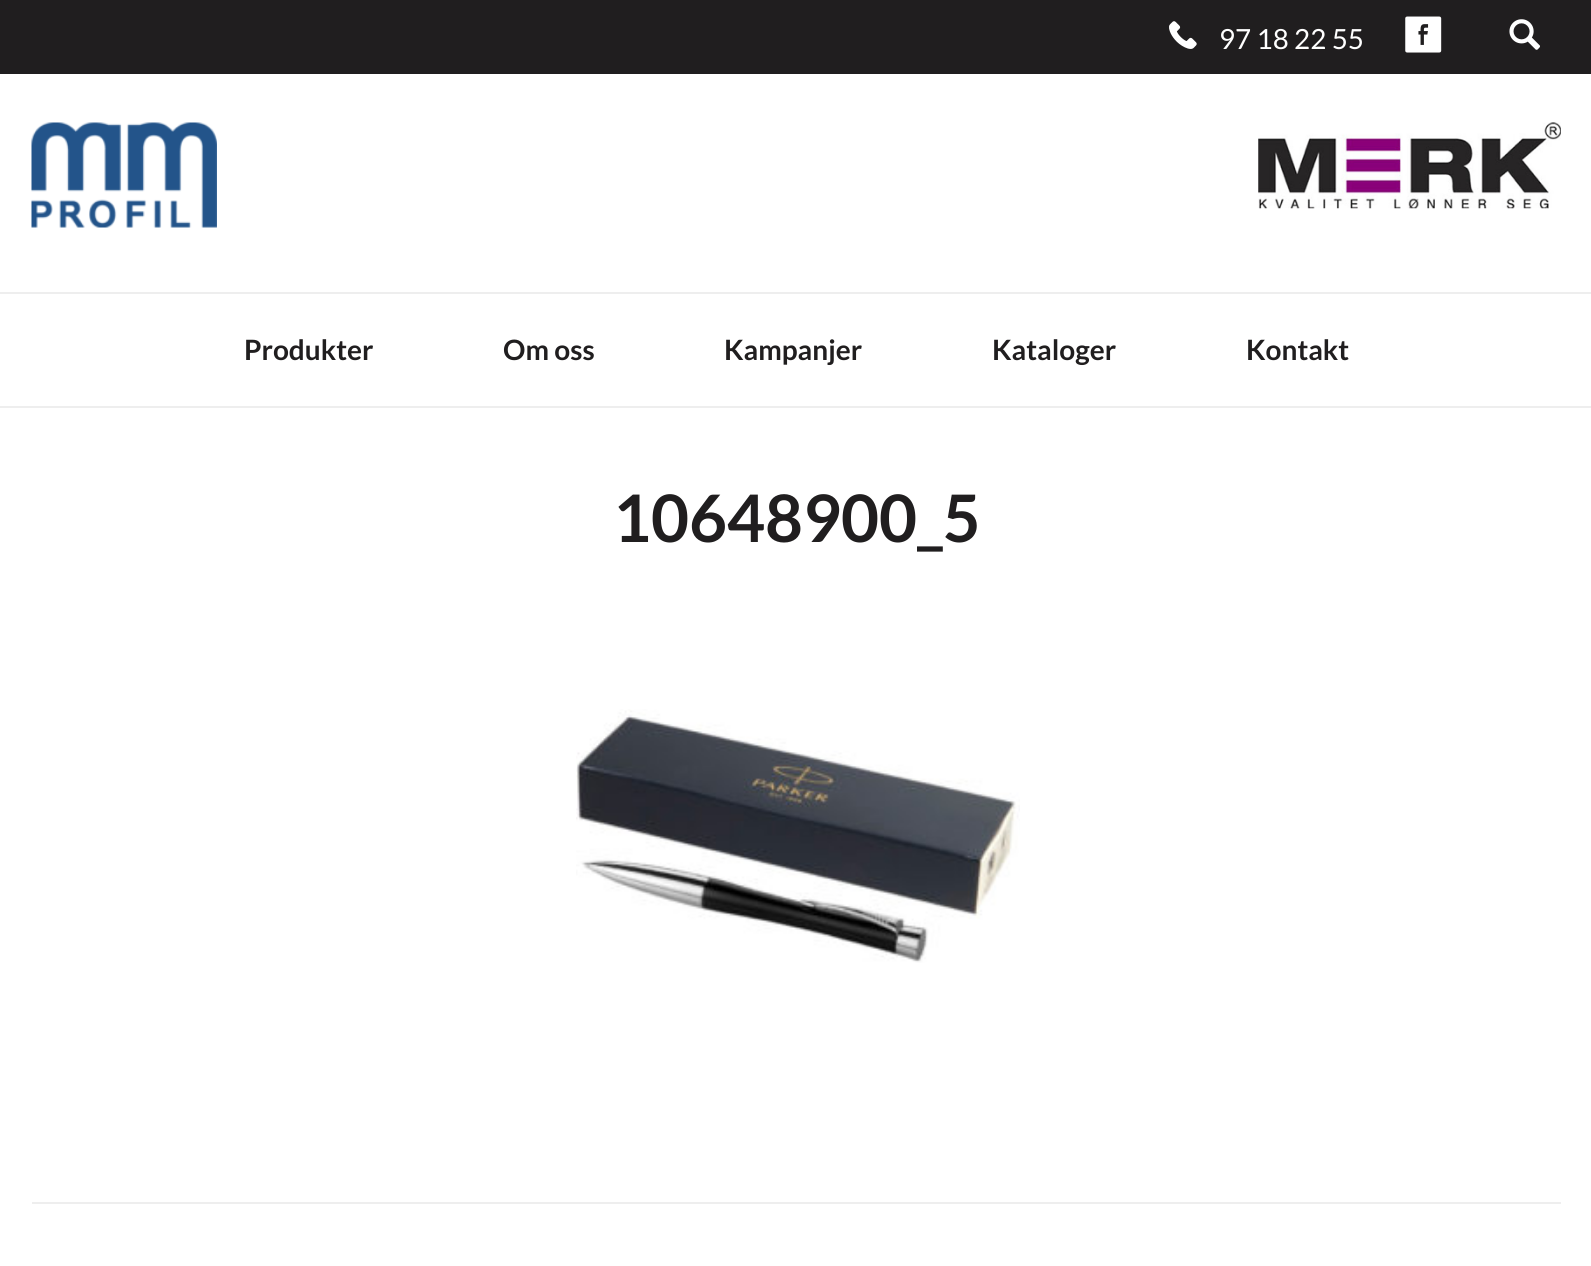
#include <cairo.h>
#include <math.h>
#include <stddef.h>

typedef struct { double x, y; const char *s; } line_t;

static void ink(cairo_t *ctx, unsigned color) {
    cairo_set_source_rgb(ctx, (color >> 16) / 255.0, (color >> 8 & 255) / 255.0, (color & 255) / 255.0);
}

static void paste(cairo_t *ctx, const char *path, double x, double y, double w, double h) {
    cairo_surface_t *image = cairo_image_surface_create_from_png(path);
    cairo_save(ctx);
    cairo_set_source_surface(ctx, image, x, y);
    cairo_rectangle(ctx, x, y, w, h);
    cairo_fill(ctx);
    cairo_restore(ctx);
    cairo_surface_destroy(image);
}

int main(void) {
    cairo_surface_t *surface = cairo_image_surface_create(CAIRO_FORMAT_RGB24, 1591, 1266);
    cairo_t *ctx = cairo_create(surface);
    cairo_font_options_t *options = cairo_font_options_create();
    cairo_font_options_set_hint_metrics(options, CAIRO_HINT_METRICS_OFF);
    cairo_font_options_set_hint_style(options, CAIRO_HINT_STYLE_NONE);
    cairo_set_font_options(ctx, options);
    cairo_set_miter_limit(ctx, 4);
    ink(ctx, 0xFFFFFF);
    cairo_paint(ctx);
    ink(ctx, 0x201E1F);
    cairo_rectangle(ctx, 0, 0, 1591, 74);
    cairo_fill(ctx);
    paste(ctx, "media/1.png", 1169, 21, 28, 28);
    cairo_select_font_face(ctx, "Lato", CAIRO_FONT_SLANT_NORMAL, CAIRO_FONT_WEIGHT_NORMAL);
    cairo_set_font_size(ctx, 27.75);
    ink(ctx, 0xFFFFFF);
    cairo_move_to(ctx, 1219, 49);
    cairo_show_text(ctx, "97 18 22 55");
    paste(ctx, "media/2.png", 1405, 16, 37, 37);
    paste(ctx, "media/3.png", 1509, 19, 31, 31);
    paste(ctx, "media/4.png", 31, 122, 186, 106);
    paste(ctx, "media/5.png", 1258, 122, 303, 87);
    ink(ctx, 0xEEEEEE);
    cairo_rectangle(ctx, 0, 292, 1591, 2);
    cairo_fill(ctx);
    cairo_rectangle(ctx, 0, 406, 1591, 2);
    cairo_fill(ctx);
    cairo_select_font_face(ctx, "Lato", CAIRO_FONT_SLANT_NORMAL, CAIRO_FONT_WEIGHT_BOLD);
    cairo_set_font_size(ctx, 28);
    ink(ctx, 0x201E1F);
    {
        static const line_t items[] = {
            {244, 360, "Produkter"},
            {503, 360, "Om oss"},
            {724, 360, "Kampanjer"},
            {992, 360, "Kataloger"},
            {1246, 360, "Kontakt"},
        };
        for (size_t i = 0; i < sizeof items / sizeof *items; i++) {
            cairo_move_to(ctx, items[i].x, items[i].y);
            cairo_show_text(ctx, items[i].s);
        }
    }
    cairo_set_font_size(ctx, 65.5);
    cairo_move_to(ctx, 613, 542);
    cairo_show_text(ctx, "10648900_5");
    paste(ctx, "media/6.png", 576, 709, 444, 254);
    ink(ctx, 0xEEEEEE);
    cairo_rectangle(ctx, 32, 1202, 1529, 2);
    cairo_fill(ctx);
    cairo_surface_write_to_png(surface, "image.png");
    cairo_font_options_destroy(options);
    cairo_destroy(ctx);
    cairo_surface_destroy(surface);
    return 0;
}
